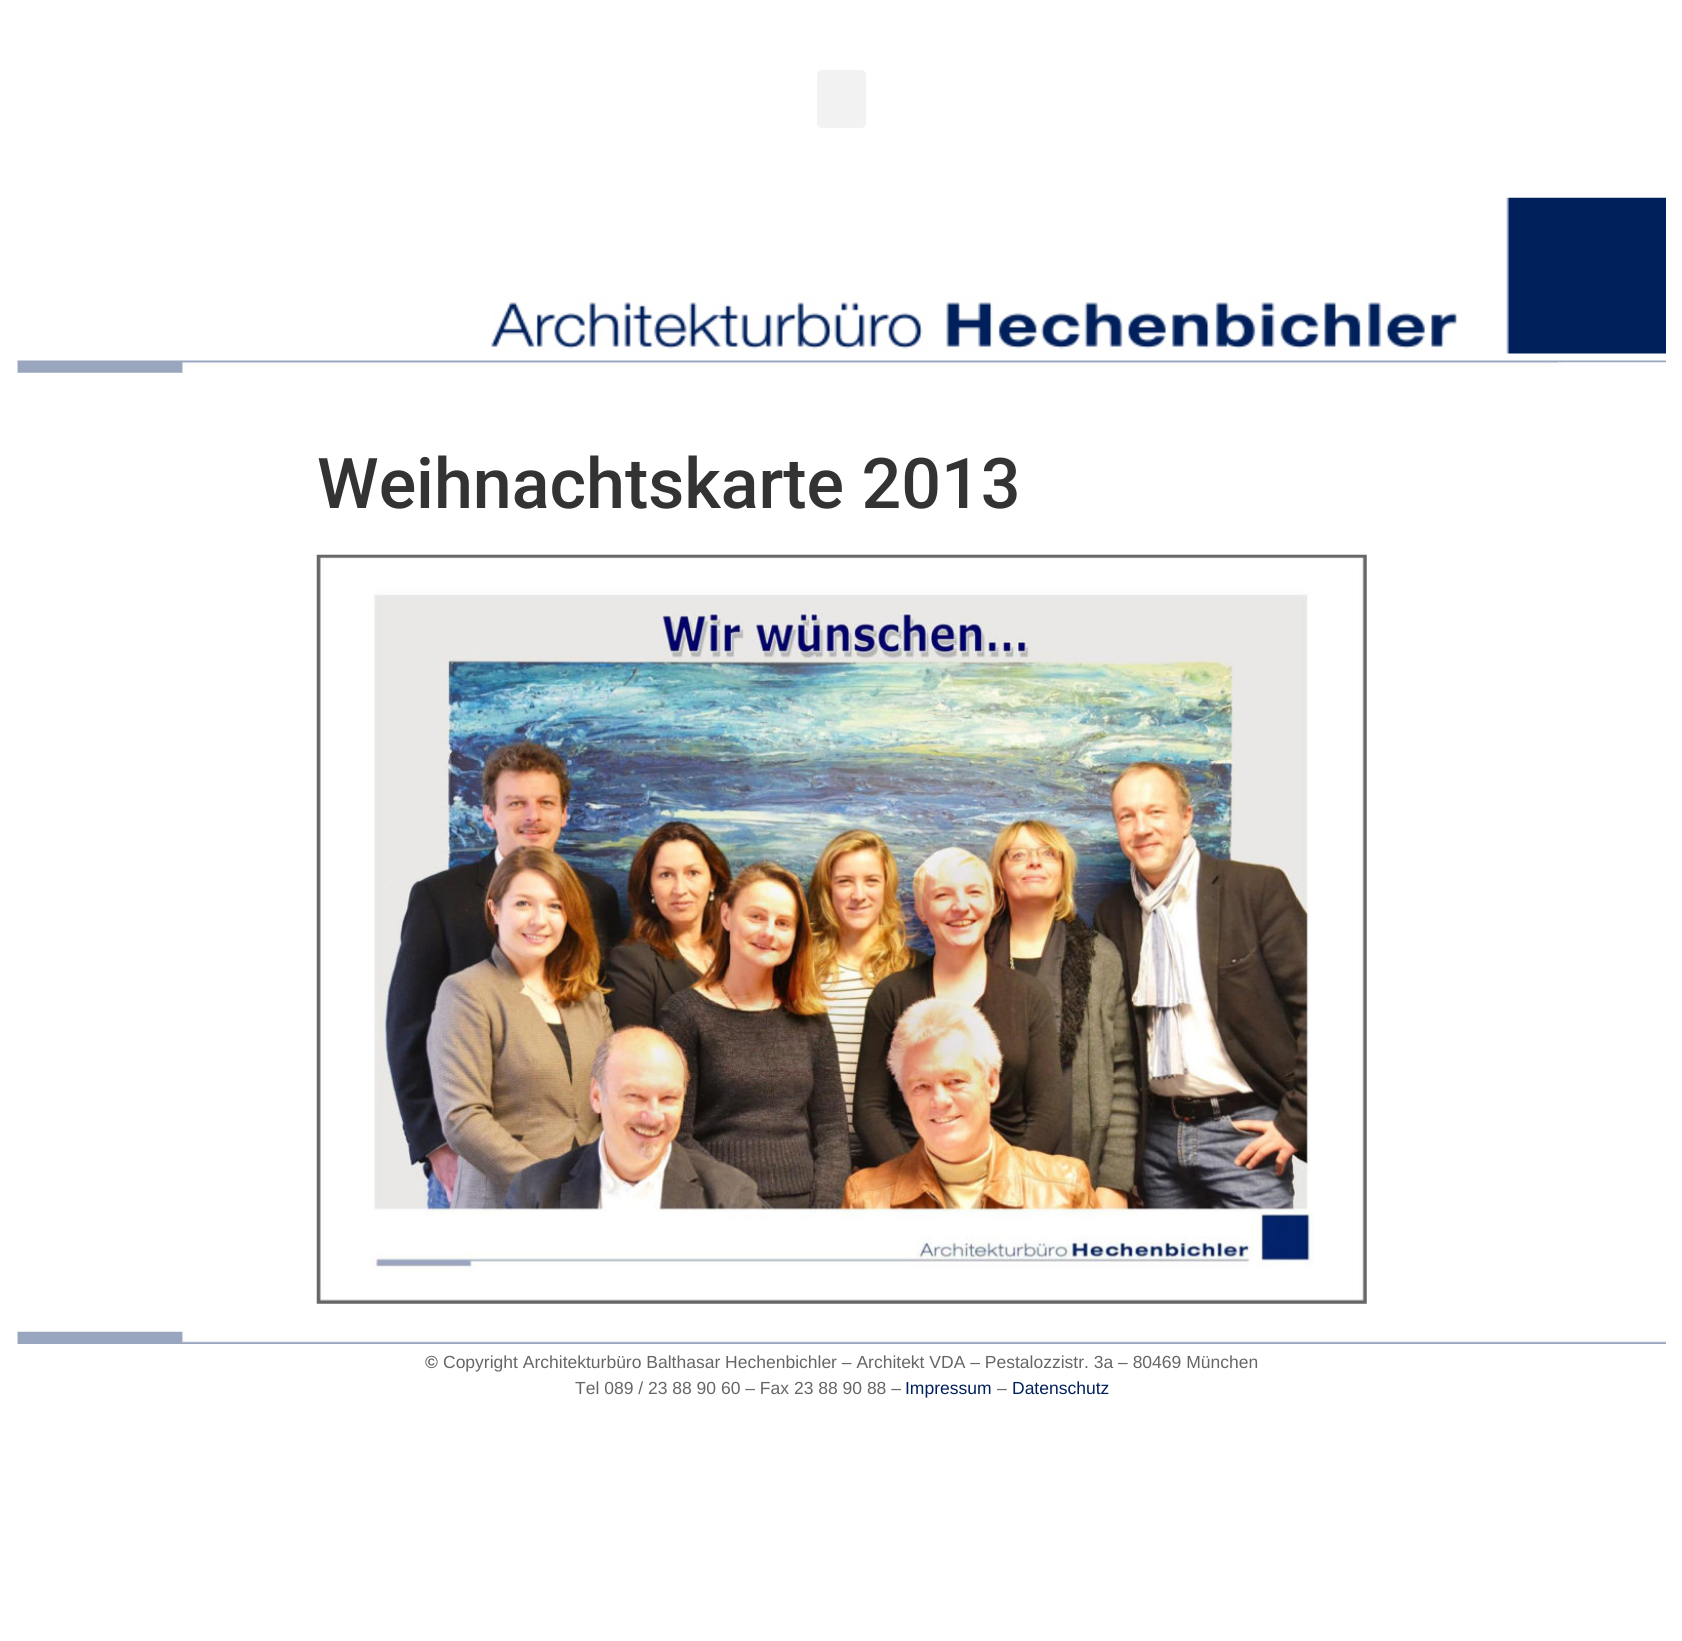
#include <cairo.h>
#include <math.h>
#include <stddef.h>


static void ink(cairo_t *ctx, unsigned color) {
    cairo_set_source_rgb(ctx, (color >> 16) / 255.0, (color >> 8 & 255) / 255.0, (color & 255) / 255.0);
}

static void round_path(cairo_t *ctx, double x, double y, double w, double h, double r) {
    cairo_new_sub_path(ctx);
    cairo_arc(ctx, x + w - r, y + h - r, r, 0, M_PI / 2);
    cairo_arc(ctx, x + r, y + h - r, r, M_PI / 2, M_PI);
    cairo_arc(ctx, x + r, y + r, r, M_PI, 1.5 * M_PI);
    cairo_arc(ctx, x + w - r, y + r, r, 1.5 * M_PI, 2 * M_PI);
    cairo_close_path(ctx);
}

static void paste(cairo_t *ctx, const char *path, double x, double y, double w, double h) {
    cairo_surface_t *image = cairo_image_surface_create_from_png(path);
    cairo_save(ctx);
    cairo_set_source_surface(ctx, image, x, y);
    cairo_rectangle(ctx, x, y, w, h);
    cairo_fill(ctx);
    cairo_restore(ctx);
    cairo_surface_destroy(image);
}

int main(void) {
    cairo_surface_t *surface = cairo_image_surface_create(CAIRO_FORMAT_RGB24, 1682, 1641);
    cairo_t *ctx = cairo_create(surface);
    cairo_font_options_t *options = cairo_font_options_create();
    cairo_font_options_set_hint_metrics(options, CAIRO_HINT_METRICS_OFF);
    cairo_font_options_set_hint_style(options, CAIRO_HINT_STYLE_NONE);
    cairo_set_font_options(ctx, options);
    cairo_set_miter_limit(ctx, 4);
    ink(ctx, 0xFFFFFF);
    cairo_paint(ctx);
    paste(ctx, "media/1.png", 17, 360, 1649, 13);
    ink(ctx, 0xF2F2F2);
    round_path(ctx, 817, 70, 49, 58, 5);
    cairo_fill(ctx);
    paste(ctx, "media/2.png", 491, 197, 1175, 157);
    cairo_select_font_face(ctx, "Roboto Medium", CAIRO_FONT_SLANT_NORMAL, CAIRO_FONT_WEIGHT_NORMAL);
    cairo_set_font_size(ctx, 70);
    ink(ctx, 0x333333);
    cairo_move_to(ctx, 317, 508);
    cairo_show_text(ctx, "Weihnachtskarte 2013");
    paste(ctx, "media/3.png", 316, 554, 1051, 750);
    paste(ctx, "media/4.png", 17, 1331, 1649, 13);
    cairo_select_font_face(ctx, "Liberation Sans", CAIRO_FONT_SLANT_NORMAL, CAIRO_FONT_WEIGHT_BOLD);
    cairo_set_font_size(ctx, 17.5);
    ink(ctx, 0x666666);
    cairo_move_to(ctx, 425, 1368);
    cairo_show_text(ctx, "©");
    cairo_select_font_face(ctx, "Liberation Sans", CAIRO_FONT_SLANT_NORMAL, CAIRO_FONT_WEIGHT_NORMAL);
    cairo_move_to(ctx, 443, 1368);
    cairo_show_text(ctx, "Copyright Architekturbüro Balthasar Hechenbichler – Architekt VDA – Pestalozzistr. 3a – 80469 München");
    cairo_move_to(ctx, 575, 1394);
    cairo_show_text(ctx, "Tel 089 / 23 88 90 60 – Fax 23 88 90 88 –");
    ink(ctx, 0x00205B);
    cairo_move_to(ctx, 905, 1394);
    cairo_show_text(ctx, "Impressum");
    ink(ctx, 0x666666);
    cairo_move_to(ctx, 997, 1394);
    cairo_show_text(ctx, "–");
    ink(ctx, 0x00205B);
    cairo_move_to(ctx, 1012, 1394);
    cairo_show_text(ctx, "Datenschutz");
    cairo_surface_write_to_png(surface, "image.png");
    cairo_font_options_destroy(options);
    cairo_destroy(ctx);
    cairo_surface_destroy(surface);
    return 0;
}
